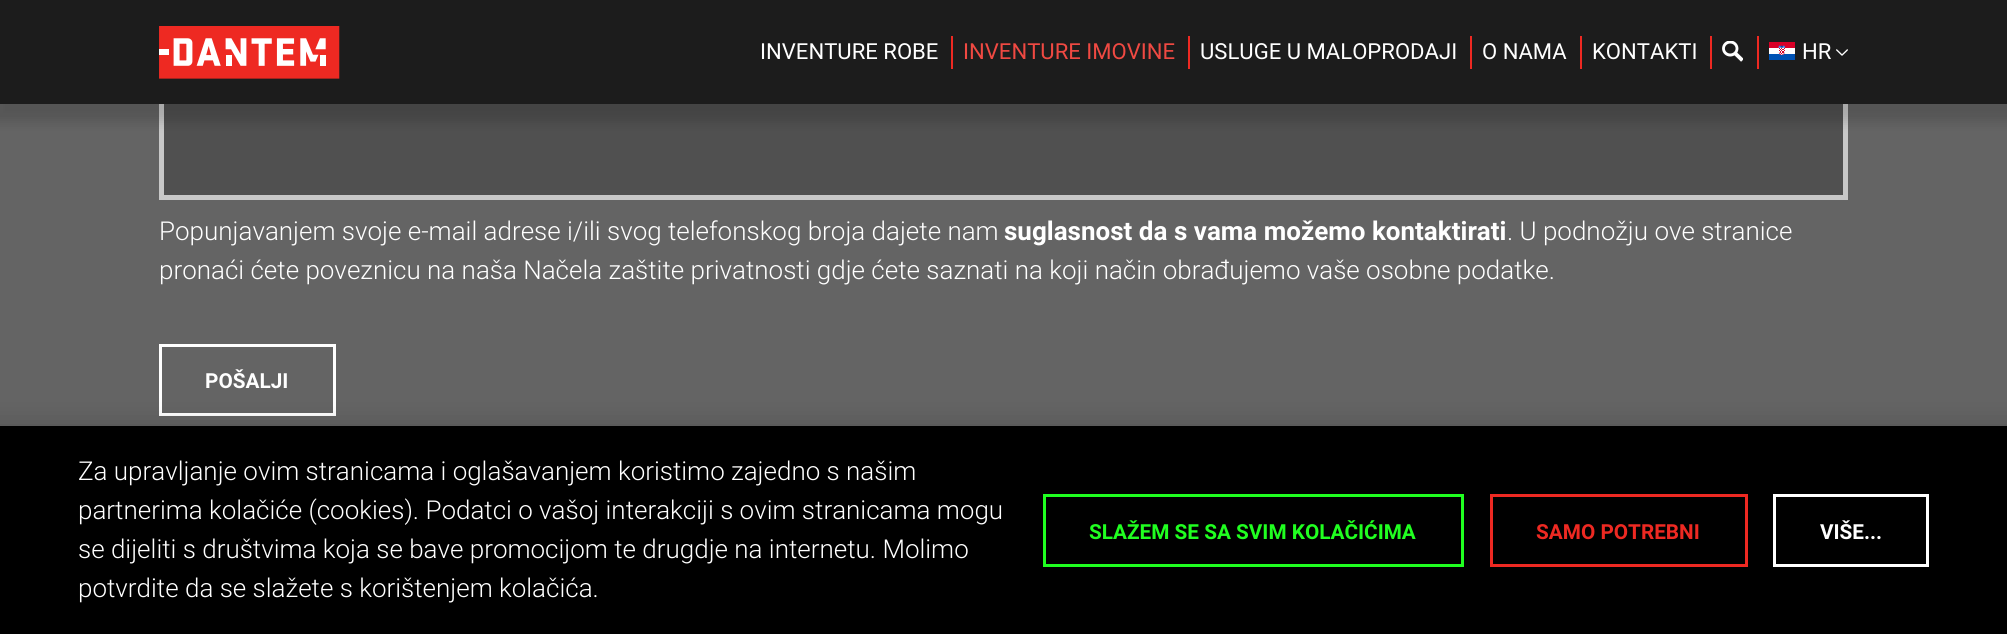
#include <cairo.h>
#include <math.h>
#include <stddef.h>

typedef struct { double x, y; const char *s; } line_t;

static void ink(cairo_t *ctx, unsigned color) {
    cairo_set_source_rgb(ctx, (color >> 16) / 255.0, (color >> 8 & 255) / 255.0, (color & 255) / 255.0);
}

static void round_path(cairo_t *ctx, double x, double y, double w, double h, double r) {
    cairo_new_sub_path(ctx);
    cairo_arc(ctx, x + w - r, y + h - r, r, 0, M_PI / 2);
    cairo_arc(ctx, x + r, y + h - r, r, M_PI / 2, M_PI);
    cairo_arc(ctx, x + r, y + r, r, M_PI, 1.5 * M_PI);
    cairo_arc(ctx, x + w - r, y + r, r, 1.5 * M_PI, 2 * M_PI);
    cairo_close_path(ctx);
}

static void blur_box(cairo_t *ctx, double x, double y, double w, double h, double r, double blur, double alpha) {
    cairo_push_group_with_content(ctx, CAIRO_CONTENT_ALPHA);
    cairo_set_operator(ctx, CAIRO_OPERATOR_SOURCE);
    for (int i = 15; i >= -15 && fmin(w, h) + blur * i / 3 > 0; i -= 2) {
        double e = blur * i / 6;
        cairo_set_source_rgba(ctx, 0, 0, 0, alpha * erfc((i - 1) / 8.5) / 2);
        round_path(ctx, x - e, y - e, w + 2 * e, h + 2 * e, fmax(0, fmin(r + e + blur * .6, fmin(w, h) / 2 + e)));
        cairo_fill(ctx);
    }
    cairo_pattern_t *soft = cairo_pop_group(ctx);
    cairo_mask(ctx, soft);
    cairo_pattern_destroy(soft);
}

static void paste(cairo_t *ctx, const char *path, double x, double y, double w, double h) {
    cairo_surface_t *image = cairo_image_surface_create_from_png(path);
    cairo_save(ctx);
    cairo_set_source_surface(ctx, image, x, y);
    cairo_rectangle(ctx, x, y, w, h);
    cairo_fill(ctx);
    cairo_restore(ctx);
    cairo_surface_destroy(image);
}

int main(void) {
    cairo_surface_t *surface = cairo_image_surface_create(CAIRO_FORMAT_RGB24, 2007, 634);
    cairo_t *ctx = cairo_create(surface);
    cairo_font_options_t *options = cairo_font_options_create();
    cairo_font_options_set_hint_metrics(options, CAIRO_HINT_METRICS_OFF);
    cairo_font_options_set_hint_style(options, CAIRO_HINT_STYLE_NONE);
    cairo_set_font_options(ctx, options);
    cairo_set_miter_limit(ctx, 4);
    ink(ctx, 0x646464);
    cairo_paint(ctx);
    ink(ctx, 0x505050);
    cairo_rectangle(ctx, 164, 104, 1679, 91);
    cairo_fill(ctx);
    cairo_rectangle(ctx, 161.5, -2.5, 1684, 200);
    ink(ctx, 0xC8C8C8);
    cairo_set_line_width(ctx, 5);
    cairo_stroke(ctx);
    ink(ctx, 0x000000);
    blur_box(ctx, -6, -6, 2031, 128, 0, 6, 0.15);
    ink(ctx, 0x1C1C1C);
    cairo_rectangle(ctx, 0, 0, 2007, 104);
    cairo_fill(ctx);
    paste(ctx, "media/1.png", 159, 26, 181, 53);
    ink(ctx, 0xEE2922);
    cairo_rectangle(ctx, 951, 36, 2, 33);
    cairo_fill(ctx);
    cairo_select_font_face(ctx, "Roboto", CAIRO_FONT_SLANT_NORMAL, CAIRO_FONT_WEIGHT_NORMAL);
    cairo_set_font_size(ctx, 22.1);
    ink(ctx, 0xFFFFFF);
    cairo_move_to(ctx, 760, 59);
    cairo_show_text(ctx, "INVENTURE ROBE");
    ink(ctx, 0xEE2922);
    cairo_rectangle(ctx, 1188, 36, 2, 33);
    cairo_fill(ctx);
    ink(ctx, 0xF04942);
    cairo_move_to(ctx, 963, 59);
    cairo_show_text(ctx, "INVENTURE IMOVINE");
    ink(ctx, 0xEE2922);
    cairo_rectangle(ctx, 1470, 36, 2, 33);
    cairo_fill(ctx);
    ink(ctx, 0xFFFFFF);
    cairo_move_to(ctx, 1200, 59);
    cairo_show_text(ctx, "USLUGE U MALOPRODAJI");
    ink(ctx, 0xEE2922);
    cairo_rectangle(ctx, 1580, 36, 2, 33);
    cairo_fill(ctx);
    ink(ctx, 0xFFFFFF);
    cairo_move_to(ctx, 1482, 59);
    cairo_show_text(ctx, "O NAMA");
    ink(ctx, 0xEE2922);
    cairo_rectangle(ctx, 1710, 36, 2, 33);
    cairo_fill(ctx);
    ink(ctx, 0xFFFFFF);
    cairo_move_to(ctx, 1592, 59);
    cairo_show_text(ctx, "KONTAKTI");
    ink(ctx, 0xEE2922);
    cairo_rectangle(ctx, 1757, 36, 2, 33);
    cairo_fill(ctx);
    paste(ctx, "media/2.png", 1722, 41, 21, 21);
    paste(ctx, "media/3.png", 1769, 42, 26, 18);
    ink(ctx, 0xFFFFFF);
    cairo_move_to(ctx, 1802, 59);
    cairo_show_text(ctx, "HR");
    paste(ctx, "media/4.png", 1836, 49, 12, 7);
    cairo_select_font_face(ctx, "Roboto Light", CAIRO_FONT_SLANT_NORMAL, CAIRO_FONT_WEIGHT_NORMAL);
    cairo_set_font_size(ctx, 26);
    cairo_move_to(ctx, 159, 240);
    cairo_show_text(ctx, "Popunjavanjem svoje e-mail adrese i/ili svog telefonskog broja dajete nam");
    cairo_select_font_face(ctx, "Roboto", CAIRO_FONT_SLANT_NORMAL, CAIRO_FONT_WEIGHT_BOLD);
    cairo_move_to(ctx, 1004, 240);
    cairo_show_text(ctx, "suglasnost da s vama možemo kontaktirati");
    cairo_select_font_face(ctx, "Roboto Light", CAIRO_FONT_SLANT_NORMAL, CAIRO_FONT_WEIGHT_NORMAL);
    cairo_move_to(ctx, 1507, 240);
    cairo_show_text(ctx, ". U podnožju ove stranice");
    cairo_move_to(ctx, 159, 279);
    cairo_show_text(ctx, "pronaći ćete poveznicu na naša Načela zaštite privatnosti gdje ćete saznati na koji način obrađujemo vaše osobne podatke.");
    cairo_rectangle(ctx, 160.5, 345.5, 174, 69);
    cairo_set_line_width(ctx, 3);
    cairo_stroke(ctx);
    cairo_select_font_face(ctx, "Roboto", CAIRO_FONT_SLANT_NORMAL, CAIRO_FONT_WEIGHT_BOLD);
    cairo_set_font_size(ctx, 20.75);
    cairo_move_to(ctx, 205, 388);
    cairo_show_text(ctx, "POŠALJI");
    ink(ctx, 0x000000);
    blur_box(ctx, -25, 426, 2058, 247, 0, 13, 0.2);
    ink(ctx, 0x000000);
    cairo_rectangle(ctx, 0, 426, 2007, 208);
    cairo_fill(ctx);
    cairo_select_font_face(ctx, "Roboto Light", CAIRO_FONT_SLANT_NORMAL, CAIRO_FONT_WEIGHT_NORMAL);
    cairo_set_font_size(ctx, 26);
    ink(ctx, 0xFFFFFF);
    {
        static const line_t items[] = {
            {78, 480, "Za upravljanje ovim stranicama i oglašavanjem koristimo zajedno s našim"},
            {78, 519, "partnerima kolačiće (cookies). Podatci o vašoj interakciji s ovim stranicama mogu"},
            {78, 558, "se dijeliti s društvima koja se bave promocijom te drugdje na internetu. Molimo"},
            {78, 597, "potvrdite da se slažete s korištenjem kolačića."},
        };
        for (size_t i = 0; i < sizeof items / sizeof *items; i++) {
            cairo_move_to(ctx, items[i].x, items[i].y);
            cairo_show_text(ctx, items[i].s);
        }
    }
    cairo_rectangle(ctx, 1044.5, 495.5, 418, 70);
    ink(ctx, 0x20FF20);
    cairo_stroke(ctx);
    cairo_select_font_face(ctx, "Roboto", CAIRO_FONT_SLANT_NORMAL, CAIRO_FONT_WEIGHT_BOLD);
    cairo_set_font_size(ctx, 20.75);
    cairo_move_to(ctx, 1089, 539);
    cairo_show_text(ctx, "SLAŽEM SE SA SVIM KOLAČIĆIMA");
    cairo_rectangle(ctx, 1491.5, 495.5, 255, 70);
    ink(ctx, 0xEE2922);
    cairo_stroke(ctx);
    cairo_move_to(ctx, 1536, 539);
    cairo_show_text(ctx, "SAMO POTREBNI");
    cairo_rectangle(ctx, 1774.5, 495.5, 153, 70);
    ink(ctx, 0xFFFFFF);
    cairo_stroke(ctx);
    cairo_move_to(ctx, 1820, 539);
    cairo_show_text(ctx, "VIŠE...");
    cairo_surface_write_to_png(surface, "image.png");
    cairo_font_options_destroy(options);
    cairo_destroy(ctx);
    cairo_surface_destroy(surface);
    return 0;
}
